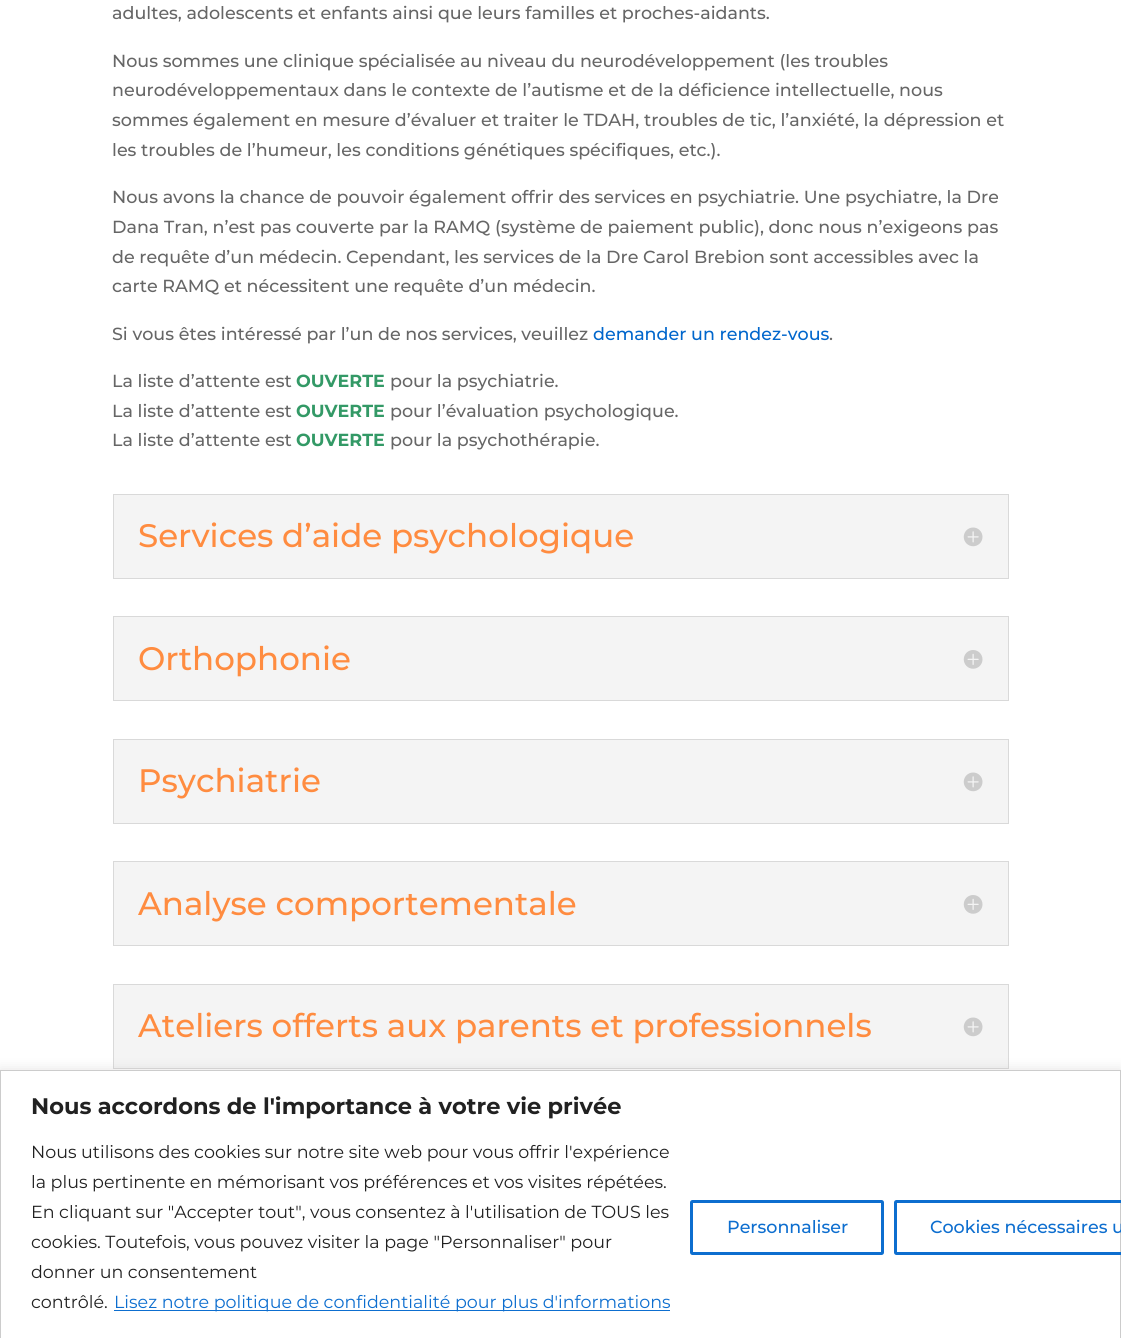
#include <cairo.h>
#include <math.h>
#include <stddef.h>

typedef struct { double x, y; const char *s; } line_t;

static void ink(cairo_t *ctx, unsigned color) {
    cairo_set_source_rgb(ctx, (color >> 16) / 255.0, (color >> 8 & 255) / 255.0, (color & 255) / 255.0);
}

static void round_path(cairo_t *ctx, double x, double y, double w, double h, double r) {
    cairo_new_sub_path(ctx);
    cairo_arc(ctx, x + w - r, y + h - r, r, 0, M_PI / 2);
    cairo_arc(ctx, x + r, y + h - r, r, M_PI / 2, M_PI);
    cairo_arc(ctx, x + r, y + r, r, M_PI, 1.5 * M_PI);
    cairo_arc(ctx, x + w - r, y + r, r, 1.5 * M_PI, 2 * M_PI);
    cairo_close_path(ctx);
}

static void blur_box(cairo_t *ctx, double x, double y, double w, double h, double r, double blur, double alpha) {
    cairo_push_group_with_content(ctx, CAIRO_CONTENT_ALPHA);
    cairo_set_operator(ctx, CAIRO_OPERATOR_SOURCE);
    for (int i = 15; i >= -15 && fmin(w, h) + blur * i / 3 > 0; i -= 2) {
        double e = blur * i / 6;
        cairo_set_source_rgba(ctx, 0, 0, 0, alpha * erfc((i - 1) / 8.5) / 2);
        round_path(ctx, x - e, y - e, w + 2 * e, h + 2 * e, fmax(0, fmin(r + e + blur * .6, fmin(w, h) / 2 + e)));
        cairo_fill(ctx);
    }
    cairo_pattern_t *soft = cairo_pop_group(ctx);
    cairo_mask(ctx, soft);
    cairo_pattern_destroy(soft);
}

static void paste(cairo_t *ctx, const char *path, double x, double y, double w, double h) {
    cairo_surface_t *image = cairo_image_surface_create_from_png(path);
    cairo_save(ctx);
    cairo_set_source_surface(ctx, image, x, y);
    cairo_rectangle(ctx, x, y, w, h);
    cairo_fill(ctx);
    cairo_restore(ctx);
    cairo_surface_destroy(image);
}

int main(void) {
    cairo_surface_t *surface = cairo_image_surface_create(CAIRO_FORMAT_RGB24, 1121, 1338);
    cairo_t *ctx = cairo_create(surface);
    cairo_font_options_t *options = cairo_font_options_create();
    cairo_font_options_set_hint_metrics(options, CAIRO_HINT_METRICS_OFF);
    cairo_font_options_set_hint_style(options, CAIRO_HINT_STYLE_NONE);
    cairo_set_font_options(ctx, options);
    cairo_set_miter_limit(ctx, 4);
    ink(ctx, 0xFFFFFF);
    cairo_paint(ctx);
    cairo_select_font_face(ctx, "Montserrat Medium", CAIRO_FONT_SLANT_NORMAL, CAIRO_FONT_WEIGHT_NORMAL);
    cairo_set_font_size(ctx, 17.5);
    ink(ctx, 0x666666);
    {
        static const line_t items[] = {
            {112, 19, "adultes, adolescents et enfants ainsi que leurs familles et proches-aidants."},
            {112, 67, "Nous sommes une clinique spécialisée au niveau du neurodéveloppement (les troubles"},
            {112, 96, "neurodéveloppementaux dans le contexte de l’autisme et de la déficience intellectuelle, nous"},
            {112, 126, "sommes également en mesure d’évaluer et traiter le TDAH, troubles de tic, l’anxiété, la dépression et"},
            {112, 156, "les troubles de l’humeur, les conditions génétiques spécifiques, etc.)."},
            {112, 203, "Nous avons la chance de pouvoir également offrir des services en psychiatrie. Une psychiatre, la Dre"},
            {112, 233, "Dana Tran, n’est pas couverte par la RAMQ (système de paiement public), donc nous n’exigeons pas"},
            {112, 263, "de requête d’un médecin. Cependant, les services de la Dre Carol Brebion sont accessibles avec la"},
            {112, 292, "carte RAMQ et nécessitent une requête d’un médecin."},
            {112, 340, "Si vous êtes intéressé par l’un de nos services, veuillez"},
        };
        for (size_t i = 0; i < sizeof items / sizeof *items; i++) {
            cairo_move_to(ctx, items[i].x, items[i].y);
            cairo_show_text(ctx, items[i].s);
        }
    }
    ink(ctx, 0x0066CC);
    cairo_move_to(ctx, 593, 340);
    cairo_show_text(ctx, "demander un rendez-vous");
    ink(ctx, 0x666666);
    cairo_move_to(ctx, 829, 340);
    cairo_show_text(ctx, ".");
    cairo_move_to(ctx, 112, 387);
    cairo_show_text(ctx, "La liste d’attente est");
    cairo_select_font_face(ctx, "Montserrat", CAIRO_FONT_SLANT_NORMAL, CAIRO_FONT_WEIGHT_BOLD);
    ink(ctx, 0x339966);
    cairo_move_to(ctx, 296, 387);
    cairo_show_text(ctx, "OUVERTE");
    cairo_select_font_face(ctx, "Montserrat Medium", CAIRO_FONT_SLANT_NORMAL, CAIRO_FONT_WEIGHT_NORMAL);
    ink(ctx, 0x666666);
    cairo_move_to(ctx, 390, 387);
    cairo_show_text(ctx, "pour la psychiatrie.");
    cairo_move_to(ctx, 112, 417);
    cairo_show_text(ctx, "La liste d’attente est");
    cairo_select_font_face(ctx, "Montserrat", CAIRO_FONT_SLANT_NORMAL, CAIRO_FONT_WEIGHT_BOLD);
    ink(ctx, 0x339966);
    cairo_move_to(ctx, 296, 417);
    cairo_show_text(ctx, "OUVERTE");
    cairo_select_font_face(ctx, "Montserrat Medium", CAIRO_FONT_SLANT_NORMAL, CAIRO_FONT_WEIGHT_NORMAL);
    ink(ctx, 0x666666);
    cairo_move_to(ctx, 390, 417);
    cairo_show_text(ctx, "pour l’évaluation psychologique.");
    cairo_move_to(ctx, 112, 446);
    cairo_show_text(ctx, "La liste d’attente est");
    cairo_select_font_face(ctx, "Montserrat", CAIRO_FONT_SLANT_NORMAL, CAIRO_FONT_WEIGHT_BOLD);
    ink(ctx, 0x339966);
    cairo_move_to(ctx, 296, 446);
    cairo_show_text(ctx, "OUVERTE");
    cairo_select_font_face(ctx, "Montserrat Medium", CAIRO_FONT_SLANT_NORMAL, CAIRO_FONT_WEIGHT_NORMAL);
    ink(ctx, 0x666666);
    cairo_move_to(ctx, 390, 446);
    cairo_show_text(ctx, "pour la psychothérapie.");
    ink(ctx, 0xF4F4F4);
    cairo_rectangle(ctx, 113.5, 494.5, 895, 84);
    cairo_fill_preserve(ctx);
    ink(ctx, 0xD9D9D9);
    cairo_set_line_width(ctx, 1);
    cairo_stroke(ctx);
    cairo_set_font_size(ctx, 32.5);
    ink(ctx, 0xFF8C40);
    cairo_move_to(ctx, 138, 547);
    cairo_show_text(ctx, "Services d’aide psychologique");
    paste(ctx, "media/1.png", 963, 527, 20, 20);
    ink(ctx, 0xF4F4F4);
    cairo_rectangle(ctx, 113.5, 616.5, 895, 84);
    cairo_fill_preserve(ctx);
    ink(ctx, 0xD9D9D9);
    cairo_stroke(ctx);
    ink(ctx, 0xFF8C40);
    cairo_move_to(ctx, 138, 670);
    cairo_show_text(ctx, "Orthophonie");
    paste(ctx, "media/2.png", 963, 650, 20, 19);
    ink(ctx, 0xF4F4F4);
    cairo_rectangle(ctx, 113.5, 739.5, 895, 84);
    cairo_fill_preserve(ctx);
    ink(ctx, 0xD9D9D9);
    cairo_stroke(ctx);
    ink(ctx, 0xFF8C40);
    cairo_move_to(ctx, 138, 792);
    cairo_show_text(ctx, "Psychiatrie");
    paste(ctx, "media/1.png", 963, 772, 20, 20);
    ink(ctx, 0xF4F4F4);
    cairo_rectangle(ctx, 113.5, 861.5, 895, 84);
    cairo_fill_preserve(ctx);
    ink(ctx, 0xD9D9D9);
    cairo_stroke(ctx);
    ink(ctx, 0xFF8C40);
    cairo_move_to(ctx, 138, 915);
    cairo_show_text(ctx, "Analyse comportementale");
    paste(ctx, "media/2.png", 963, 895, 20, 19);
    ink(ctx, 0xF4F4F4);
    cairo_rectangle(ctx, 113.5, 984.5, 895, 84);
    cairo_fill_preserve(ctx);
    ink(ctx, 0xD9D9D9);
    cairo_stroke(ctx);
    ink(ctx, 0xFF8C40);
    cairo_move_to(ctx, 138, 1037);
    cairo_show_text(ctx, "Ateliers offerts aux parents et professionnels");
    paste(ctx, "media/1.png", 963, 1017, 20, 20);
    ink(ctx, 0xACABAB);
    blur_box(ctx, 0, 1069, 1121, 269, 0, 6, 0.3);
    ink(ctx, 0xFFFFFF);
    cairo_rectangle(ctx, 0.5, 1070.5, 1120, 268);
    cairo_fill_preserve(ctx);
    ink(ctx, 0xCCCCCC);
    cairo_stroke(ctx);
    cairo_select_font_face(ctx, "Montserrat", CAIRO_FONT_SLANT_NORMAL, CAIRO_FONT_WEIGHT_BOLD);
    cairo_set_font_size(ctx, 22.5);
    ink(ctx, 0x212121);
    cairo_move_to(ctx, 31, 1114);
    cairo_show_text(ctx, "Nous accordons de l'importance à votre vie privée");
    cairo_select_font_face(ctx, "Montserrat", CAIRO_FONT_SLANT_NORMAL, CAIRO_FONT_WEIGHT_NORMAL);
    cairo_set_font_size(ctx, 17.5);
    {
        static const line_t items[] = {
            {31, 1158, "Nous utilisons des cookies sur notre site web pour vous offrir l'expérience"},
            {31, 1188, "la plus pertinente en mémorisant vos préférences et vos visites répétées."},
            {31, 1218, "En cliquant sur \"Accepter tout\", vous consentez à l'utilisation de TOUS les"},
            {31, 1248, "cookies. Toutefois, vous pouvez visiter la page \"Personnaliser\" pour"},
            {31, 1278, "donner un consentement"},
            {31, 1308, "contrôlé."},
        };
        for (size_t i = 0; i < sizeof items / sizeof *items; i++) {
            cairo_move_to(ctx, items[i].x, items[i].y);
            cairo_show_text(ctx, items[i].s);
        }
    }
    ink(ctx, 0x0D6ECF);
    cairo_rectangle(ctx, 114, 1310, 556, 1);
    cairo_fill(ctx);
    cairo_move_to(ctx, 114, 1308);
    cairo_show_text(ctx, "Lisez notre politique de confidentialité pour plus d'informations");
    round_path(ctx, 691.5, 1201.5, 191, 52, 1);
    cairo_set_line_width(ctx, 3);
    cairo_stroke(ctx);
    cairo_select_font_face(ctx, "Montserrat Medium", CAIRO_FONT_SLANT_NORMAL, CAIRO_FONT_WEIGHT_NORMAL);
    cairo_move_to(ctx, 727, 1233);
    cairo_show_text(ctx, "Personnaliser");
    round_path(ctx, 895.5, 1201.5, 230, 52, 1);
    cairo_stroke(ctx);
    cairo_move_to(ctx, 930, 1233);
    cairo_show_text(ctx, "Cookies nécessaires u");
    cairo_surface_write_to_png(surface, "image.png");
    cairo_font_options_destroy(options);
    cairo_destroy(ctx);
    cairo_surface_destroy(surface);
    return 0;
}
